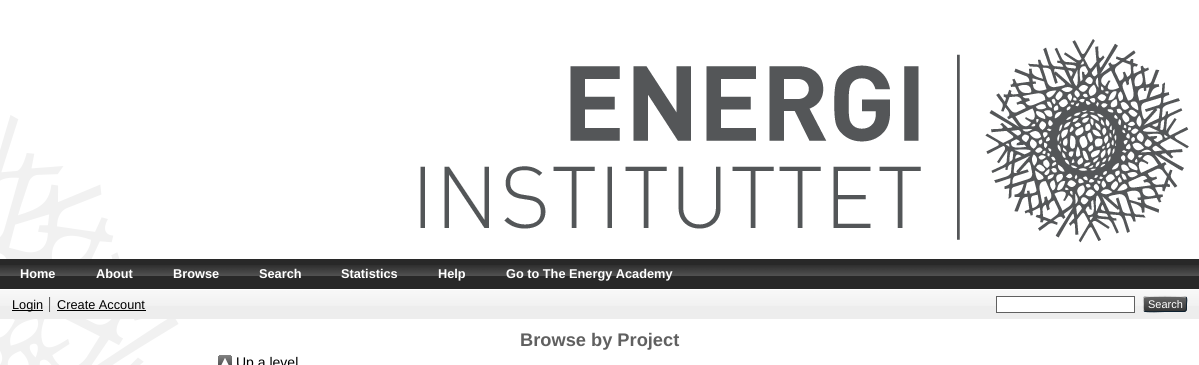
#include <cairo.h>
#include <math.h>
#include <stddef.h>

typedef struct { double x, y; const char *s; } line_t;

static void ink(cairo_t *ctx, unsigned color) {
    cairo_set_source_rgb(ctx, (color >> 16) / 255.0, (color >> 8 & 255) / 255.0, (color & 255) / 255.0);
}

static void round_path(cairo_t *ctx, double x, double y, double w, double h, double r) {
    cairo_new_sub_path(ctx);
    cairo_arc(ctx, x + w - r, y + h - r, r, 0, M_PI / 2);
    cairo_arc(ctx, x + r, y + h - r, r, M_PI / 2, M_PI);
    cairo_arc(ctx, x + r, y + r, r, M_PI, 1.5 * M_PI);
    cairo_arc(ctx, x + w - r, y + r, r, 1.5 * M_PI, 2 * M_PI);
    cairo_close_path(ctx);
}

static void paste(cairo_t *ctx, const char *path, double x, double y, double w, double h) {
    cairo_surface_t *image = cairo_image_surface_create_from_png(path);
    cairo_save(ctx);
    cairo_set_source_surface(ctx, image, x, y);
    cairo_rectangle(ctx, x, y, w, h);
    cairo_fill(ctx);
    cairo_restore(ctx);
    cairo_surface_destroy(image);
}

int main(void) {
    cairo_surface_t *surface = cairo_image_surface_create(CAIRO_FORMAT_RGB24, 1199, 365);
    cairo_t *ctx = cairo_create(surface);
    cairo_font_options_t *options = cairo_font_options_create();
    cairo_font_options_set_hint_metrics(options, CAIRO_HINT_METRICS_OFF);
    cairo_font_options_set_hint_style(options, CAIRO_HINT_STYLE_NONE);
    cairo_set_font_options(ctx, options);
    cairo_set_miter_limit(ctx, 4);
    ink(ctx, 0xFFFFFF);
    cairo_paint(ctx);
    paste(ctx, "media/1.png", 0, 115, 179, 250);
    paste(ctx, "media/2.png", 420, 39, 769, 204);
    ink(ctx, 0x282828);
    cairo_rectangle(ctx, 0, 259, 1199, 30);
    cairo_fill(ctx);
    paste(ctx, "media/3.png", 0, 265, 1199, 11);
    ink(ctx, 0xFFFFFF);
    cairo_rectangle(ctx, 0, 289, 141, 1);
    cairo_fill(ctx);
    cairo_select_font_face(ctx, "Liberation Sans", CAIRO_FONT_SLANT_NORMAL, CAIRO_FONT_WEIGHT_BOLD);
    cairo_set_font_size(ctx, 12.75);
    {
        static const line_t items[] = {
            {20, 278, "Home"},
            {96, 278, "About"},
            {173, 278, "Browse"},
            {259, 278, "Search"},
            {341, 278, "Statistics"},
            {438, 278, "Help"},
            {506, 278, "Go to The Energy Academy"},
        };
        for (size_t i = 0; i < sizeof items / sizeof *items; i++) {
            cairo_move_to(ctx, items[i].x, items[i].y);
            cairo_show_text(ctx, items[i].s);
        }
    }
    ink(ctx, 0xEDEDED);
    cairo_rectangle(ctx, 0, 290, 1199, 29);
    cairo_fill(ctx);
    paste(ctx, "media/4.png", 0, 290, 1199, 16);
    ink(ctx, 0x000000);
    cairo_rectangle(ctx, 12, 310, 31, 1);
    cairo_fill(ctx);
    cairo_select_font_face(ctx, "Liberation Sans", CAIRO_FONT_SLANT_NORMAL, CAIRO_FONT_WEIGHT_NORMAL);
    cairo_move_to(ctx, 12, 309);
    cairo_show_text(ctx, "Login");
    ink(ctx, 0x606060);
    cairo_rectangle(ctx, 49, 297, 1, 15);
    cairo_fill(ctx);
    ink(ctx, 0x000000);
    cairo_move_to(ctx, 57, 309);
    cairo_show_text(ctx, "Create Account");
    ink(ctx, 0xE8E8E8);
    cairo_rectangle(ctx, 50, 297, 1, 15);
    cairo_fill(ctx);
    ink(ctx, 0x000000);
    cairo_rectangle(ctx, 57, 310, 89, 1);
    cairo_fill(ctx);
    ink(ctx, 0xFFFFFF);
    cairo_rectangle(ctx, 996.5, 296.5, 138, 16);
    cairo_fill_preserve(ctx);
    ink(ctx, 0x606060);
    cairo_set_line_width(ctx, 1);
    cairo_stroke(ctx);
    ink(ctx, 0x282828);
    round_path(ctx, 1143, 296, 44, 16, 3);
    cairo_fill(ctx);
    paste(ctx, "media/5.png", 1143, 296, 44, 16);
    cairo_new_path(ctx);
    cairo_move_to(ctx, 1144, 297);
    cairo_curve_to(ctx, 1145.5, 296, 1184.5, 296, 1186, 297);
    ink(ctx, 0xE5E5E5);
    cairo_stroke(ctx);
    cairo_new_path(ctx);
    cairo_move_to(ctx, 1186, 297);
    cairo_curve_to(ctx, 1187.5, 299, 1186.5, 302, 1186.5, 304);
    cairo_curve_to(ctx, 1186.5, 312.5, 1187, 311.5, 1177.5, 311.5);
    cairo_line_to(ctx, 1165, 311.5);
    cairo_curve_to(ctx, 1162, 311.5, 1146, 312.5, 1144, 311);
    ink(ctx, 0x0D2131);
    cairo_stroke(ctx);
    cairo_new_path(ctx);
    cairo_move_to(ctx, 1144, 311);
    cairo_curve_to(ctx, 1143, 309.5, 1143.5, 305.5, 1143.5, 304);
    cairo_curve_to(ctx, 1143.5, 302.5, 1143, 298.5, 1144, 297);
    ink(ctx, 0xCCCCCC);
    cairo_stroke(ctx);
    cairo_set_font_size(ctx, 11);
    ink(ctx, 0xFFFFFF);
    cairo_move_to(ctx, 1148, 308);
    cairo_show_text(ctx, "Search");
    cairo_select_font_face(ctx, "Liberation Sans", CAIRO_FONT_SLANT_NORMAL, CAIRO_FONT_WEIGHT_BOLD);
    cairo_set_font_size(ctx, 18.25);
    ink(ctx, 0x606060);
    cairo_move_to(ctx, 520, 346);
    cairo_show_text(ctx, "Browse by Project");
    paste(ctx, "media/6.png", 218, 355, 14, 10);
    cairo_select_font_face(ctx, "Liberation Sans", CAIRO_FONT_SLANT_NORMAL, CAIRO_FONT_WEIGHT_NORMAL);
    cairo_set_font_size(ctx, 14);
    ink(ctx, 0x000000);
    cairo_move_to(ctx, 236, 367);
    cairo_show_text(ctx, "Up a level");
    cairo_surface_write_to_png(surface, "image.png");
    cairo_font_options_destroy(options);
    cairo_destroy(ctx);
    cairo_surface_destroy(surface);
    return 0;
}
